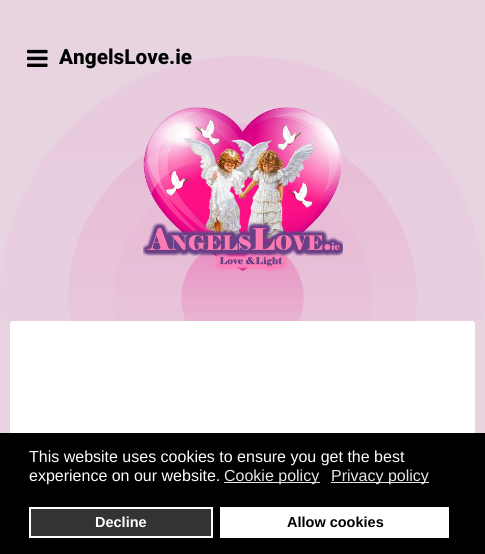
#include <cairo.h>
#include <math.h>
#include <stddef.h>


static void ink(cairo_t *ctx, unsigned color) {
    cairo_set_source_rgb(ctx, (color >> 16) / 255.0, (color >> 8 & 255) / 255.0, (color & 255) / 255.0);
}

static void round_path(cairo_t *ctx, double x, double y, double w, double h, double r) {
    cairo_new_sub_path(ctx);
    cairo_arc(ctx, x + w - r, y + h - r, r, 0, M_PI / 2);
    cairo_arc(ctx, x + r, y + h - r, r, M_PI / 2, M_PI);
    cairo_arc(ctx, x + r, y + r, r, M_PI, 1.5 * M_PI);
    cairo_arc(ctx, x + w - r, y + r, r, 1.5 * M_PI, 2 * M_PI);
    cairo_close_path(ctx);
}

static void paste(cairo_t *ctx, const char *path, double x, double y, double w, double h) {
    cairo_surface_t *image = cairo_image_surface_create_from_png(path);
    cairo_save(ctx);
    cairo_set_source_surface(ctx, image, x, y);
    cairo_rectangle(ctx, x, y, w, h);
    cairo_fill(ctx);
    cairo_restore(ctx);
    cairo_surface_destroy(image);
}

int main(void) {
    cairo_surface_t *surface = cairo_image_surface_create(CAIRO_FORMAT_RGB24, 485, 554);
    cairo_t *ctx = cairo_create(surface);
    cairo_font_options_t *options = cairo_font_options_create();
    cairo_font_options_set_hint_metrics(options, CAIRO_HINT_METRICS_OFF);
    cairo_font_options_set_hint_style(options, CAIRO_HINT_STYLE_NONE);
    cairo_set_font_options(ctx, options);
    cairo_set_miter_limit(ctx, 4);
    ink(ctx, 0xE8D3E1);
    cairo_paint(ctx);
    paste(ctx, "media/3.png", 0, 56, 485, 265);
    paste(ctx, "media/1.png", 27, 49, 21, 18);
    cairo_select_font_face(ctx, "Heebo ExtraBold", CAIRO_FONT_SLANT_NORMAL, CAIRO_FONT_WEIGHT_NORMAL);
    cairo_set_font_size(ctx, 20.75);
    ink(ctx, 0x000000);
    cairo_move_to(ctx, 59, 64);
    cairo_show_text(ctx, "AngelsLove.ie");
    paste(ctx, "media/2.png", 143, 107, 200, 164);
    ink(ctx, 0xFFFFFF);
    round_path(ctx, 10, 321, 465, 205, 3);
    cairo_fill(ctx);
    ink(ctx, 0x000000);
    cairo_rectangle(ctx, 0, 433, 485, 121);
    cairo_fill(ctx);
    cairo_select_font_face(ctx, "Liberation Sans", CAIRO_FONT_SLANT_NORMAL, CAIRO_FONT_WEIGHT_NORMAL);
    cairo_set_font_size(ctx, 16);
    ink(ctx, 0xFFFFFF);
    cairo_move_to(ctx, 29, 462);
    cairo_show_text(ctx, "This website uses cookies to ensure you get the best");
    cairo_move_to(ctx, 29, 481);
    cairo_show_text(ctx, "experience on our website.");
    ink(ctx, 0xE6E6E6);
    cairo_rectangle(ctx, 224, 482, 96, 1);
    cairo_fill(ctx);
    cairo_move_to(ctx, 224, 481);
    cairo_show_text(ctx, "Cookie policy");
    cairo_rectangle(ctx, 331, 482, 98, 1);
    cairo_fill(ctx);
    cairo_move_to(ctx, 331, 481);
    cairo_show_text(ctx, "Privacy policy");
    ink(ctx, 0x333333);
    cairo_rectangle(ctx, 30, 508, 182, 29);
    cairo_fill_preserve(ctx);
    ink(ctx, 0xFFFFFF);
    cairo_stroke(ctx);
    cairo_select_font_face(ctx, "Liberation Sans", CAIRO_FONT_SLANT_NORMAL, CAIRO_FONT_WEIGHT_BOLD);
    cairo_set_font_size(ctx, 14.5);
    cairo_move_to(ctx, 95, 527);
    cairo_show_text(ctx, "Decline");
    cairo_rectangle(ctx, 220, 507, 229, 31);
    cairo_fill(ctx);
    ink(ctx, 0x000000);
    cairo_move_to(ctx, 287, 527);
    cairo_show_text(ctx, "Allow cookies");
    cairo_surface_write_to_png(surface, "image.png");
    cairo_font_options_destroy(options);
    cairo_destroy(ctx);
    cairo_surface_destroy(surface);
    return 0;
}
